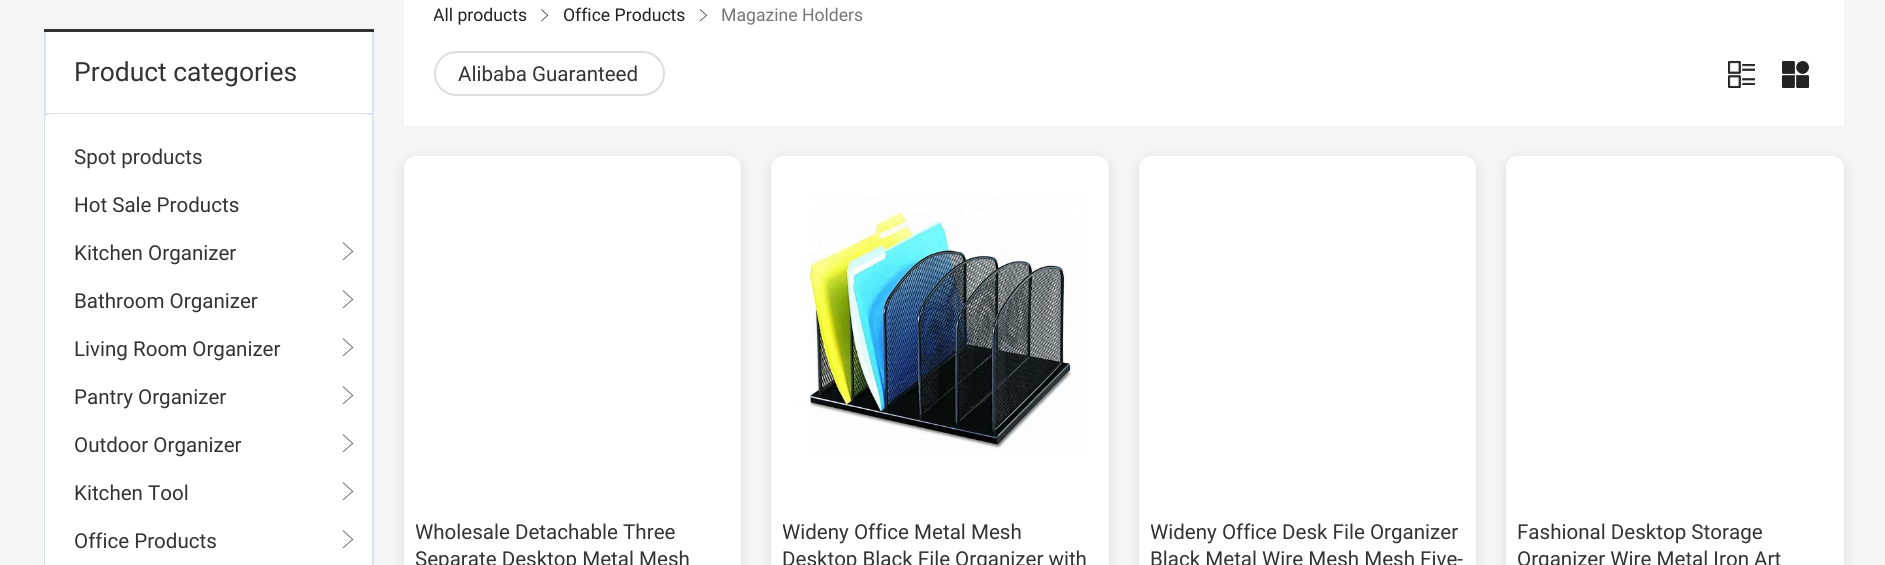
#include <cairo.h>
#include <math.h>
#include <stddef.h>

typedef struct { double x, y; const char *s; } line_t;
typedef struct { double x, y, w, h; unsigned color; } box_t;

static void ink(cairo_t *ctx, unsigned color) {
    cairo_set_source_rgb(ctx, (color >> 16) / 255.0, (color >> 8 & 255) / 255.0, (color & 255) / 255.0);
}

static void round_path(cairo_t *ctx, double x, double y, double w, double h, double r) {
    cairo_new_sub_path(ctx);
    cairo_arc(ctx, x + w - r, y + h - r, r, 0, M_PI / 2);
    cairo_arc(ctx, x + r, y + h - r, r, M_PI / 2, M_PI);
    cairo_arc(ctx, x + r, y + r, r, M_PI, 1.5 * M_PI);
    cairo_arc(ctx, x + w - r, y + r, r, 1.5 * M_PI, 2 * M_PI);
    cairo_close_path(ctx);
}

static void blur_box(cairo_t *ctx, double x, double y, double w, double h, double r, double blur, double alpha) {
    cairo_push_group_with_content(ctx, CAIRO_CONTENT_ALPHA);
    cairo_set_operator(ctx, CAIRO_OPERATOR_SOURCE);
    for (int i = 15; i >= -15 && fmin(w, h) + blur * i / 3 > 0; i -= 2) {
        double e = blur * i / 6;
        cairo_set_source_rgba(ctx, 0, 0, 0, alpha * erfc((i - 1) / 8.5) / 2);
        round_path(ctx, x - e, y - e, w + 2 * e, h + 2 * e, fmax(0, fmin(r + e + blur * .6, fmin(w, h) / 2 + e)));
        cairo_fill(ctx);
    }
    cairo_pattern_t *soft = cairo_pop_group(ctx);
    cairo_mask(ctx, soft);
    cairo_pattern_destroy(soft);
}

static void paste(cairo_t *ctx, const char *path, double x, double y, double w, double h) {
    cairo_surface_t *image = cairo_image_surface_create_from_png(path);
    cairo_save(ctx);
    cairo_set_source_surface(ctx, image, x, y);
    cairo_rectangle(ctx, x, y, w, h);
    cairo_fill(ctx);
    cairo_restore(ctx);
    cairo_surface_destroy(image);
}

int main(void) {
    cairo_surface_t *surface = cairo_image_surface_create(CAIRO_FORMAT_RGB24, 1885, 565);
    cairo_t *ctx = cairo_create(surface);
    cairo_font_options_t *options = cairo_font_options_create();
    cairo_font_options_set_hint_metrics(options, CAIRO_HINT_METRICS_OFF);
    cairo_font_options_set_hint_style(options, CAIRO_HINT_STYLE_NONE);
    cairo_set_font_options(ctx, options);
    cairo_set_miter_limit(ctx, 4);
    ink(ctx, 0xF5F5F5);
    cairo_paint(ctx);
    {
        static const box_t items[] = {
            {46, 32, 326, 88, 0xFFFFFF},
            {44, 29, 330, 3, 0x333333},
            {372, 32, 2, 533, 0xDBE3EF},
            {44, 32, 2, 533, 0xDBE3EF},
            {45, 113, 327, 2, 0xDBE3EF},
        };
        for (size_t i = 0; i < sizeof items / sizeof *items; i++) {
            ink(ctx, items[i].color);
            cairo_rectangle(ctx, items[i].x, items[i].y, items[i].w, items[i].h);
            cairo_fill(ctx);
        }
    }
    cairo_select_font_face(ctx, "Roboto", CAIRO_FONT_SLANT_NORMAL, CAIRO_FONT_WEIGHT_NORMAL);
    cairo_set_font_size(ctx, 27);
    ink(ctx, 0x333333);
    cairo_move_to(ctx, 74, 81);
    cairo_show_text(ctx, "Product categories");
    ink(ctx, 0xFFFFFF);
    round_path(ctx, 45, 114, 327, 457, 6);
    cairo_fill(ctx);
    cairo_set_font_size(ctx, 21);
    ink(ctx, 0x333333);
    {
        static const line_t items[] = {
            {74, 164, "Spot products"},
            {74, 212, "Hot Sale Products"},
            {74, 260, "Kitchen Organizer"},
        };
        for (size_t i = 0; i < sizeof items / sizeof *items; i++) {
            cairo_move_to(ctx, items[i].x, items[i].y);
            cairo_show_text(ctx, items[i].s);
        }
    }
    paste(ctx, "media/1.png", 342, 242, 12, 19);
    cairo_move_to(ctx, 74, 308);
    cairo_show_text(ctx, "Bathroom Organizer");
    paste(ctx, "media/1.png", 342, 290, 12, 19);
    cairo_move_to(ctx, 74, 356);
    cairo_show_text(ctx, "Living Room Organizer");
    paste(ctx, "media/1.png", 342, 338, 12, 19);
    cairo_move_to(ctx, 74, 404);
    cairo_show_text(ctx, "Pantry Organizer");
    paste(ctx, "media/1.png", 342, 386, 12, 19);
    cairo_move_to(ctx, 74, 452);
    cairo_show_text(ctx, "Outdoor Organizer");
    paste(ctx, "media/1.png", 342, 434, 12, 19);
    cairo_move_to(ctx, 74, 500);
    cairo_show_text(ctx, "Kitchen Tool");
    paste(ctx, "media/1.png", 342, 482, 12, 19);
    cairo_move_to(ctx, 74, 548);
    cairo_show_text(ctx, "Office Products");
    paste(ctx, "media/1.png", 342, 530, 12, 19);
    ink(ctx, 0xFFFFFF);
    cairo_rectangle(ctx, 404, 0, 1440, 126);
    cairo_fill(ctx);
    cairo_save(ctx);
    cairo_rectangle(ctx, 434, 3, 93, 24);
    cairo_clip(ctx);
    cairo_set_font_size(ctx, 18);
    ink(ctx, 0x222222);
    cairo_move_to(ctx, 433, 21);
    cairo_show_text(ctx, "All products");
    cairo_restore(ctx);
    paste(ctx, "media/2.png", 541, 9, 8, 13);
    cairo_set_font_size(ctx, 18);
    ink(ctx, 0x222222);
    cairo_move_to(ctx, 563, 21);
    cairo_show_text(ctx, "Office Products");
    paste(ctx, "media/3.png", 699, 9, 8, 13);
    ink(ctx, 0x767676);
    cairo_move_to(ctx, 721, 21);
    cairo_show_text(ctx, "Magazine Holders");
    round_path(ctx, 435, 52, 229, 43, 21.5);
    ink(ctx, 0xDDDDDD);
    cairo_stroke(ctx);
    cairo_set_font_size(ctx, 21);
    ink(ctx, 0x333333);
    cairo_move_to(ctx, 458, 81);
    cairo_show_text(ctx, "Alibaba Guaranteed");
    paste(ctx, "media/4.png", 1728, 61, 27, 27);
    paste(ctx, "media/5.png", 1782, 60, 28, 28);
    ink(ctx, 0x000000);
    blur_box(ctx, 404, 159, 337, 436, 12, 6, 0.1);
    ink(ctx, 0xFFFFFF);
    round_path(ctx, 404, 156, 337, 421, 12);
    cairo_fill(ctx);
    cairo_save(ctx);
    cairo_rectangle(ctx, 416, 518, 313, 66);
    cairo_clip(ctx);
    ink(ctx, 0x333333);
    cairo_move_to(ctx, 415, 539);
    cairo_show_text(ctx, "Wholesale Detachable Three");
    cairo_move_to(ctx, 415, 566);
    cairo_show_text(ctx, "Separate Desktop Metal Mesh");
    cairo_restore(ctx);
    ink(ctx, 0x000000);
    blur_box(ctx, 771, 159, 338, 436, 12, 6, 0.1);
    ink(ctx, 0xFFFFFF);
    round_path(ctx, 771, 156, 338, 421, 12);
    cairo_fill(ctx);
    paste(ctx, "media/6.png", 808, 194, 280, 256);
    ink(ctx, 0x333333);
    cairo_move_to(ctx, 782, 539);
    cairo_show_text(ctx, "Wideny Office Metal Mesh");
    cairo_move_to(ctx, 782, 566);
    cairo_show_text(ctx, "Desktop Black File Organizer with");
    ink(ctx, 0x000000);
    blur_box(ctx, 1139, 159, 337, 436, 12, 6, 0.1);
    ink(ctx, 0xFFFFFF);
    round_path(ctx, 1139, 156, 337, 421, 12);
    cairo_fill(ctx);
    cairo_save(ctx);
    cairo_rectangle(ctx, 1151, 518, 313, 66);
    cairo_clip(ctx);
    ink(ctx, 0x333333);
    cairo_move_to(ctx, 1150, 539);
    cairo_show_text(ctx, "Wideny Office Desk File Organizer");
    cairo_restore(ctx);
    ink(ctx, 0x333333);
    cairo_move_to(ctx, 1150, 566);
    cairo_show_text(ctx, "Black Metal Wire Mesh Mesh Five-");
    ink(ctx, 0x000000);
    blur_box(ctx, 1506, 159, 338, 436, 12, 6, 0.1);
    ink(ctx, 0xFFFFFF);
    round_path(ctx, 1506, 156, 338, 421, 12);
    cairo_fill(ctx);
    ink(ctx, 0x333333);
    cairo_move_to(ctx, 1517, 539);
    cairo_show_text(ctx, "Fashional Desktop Storage");
    cairo_move_to(ctx, 1517, 566);
    cairo_show_text(ctx, "Organizer Wire Metal Iron Art");
    cairo_surface_write_to_png(surface, "image.png");
    cairo_font_options_destroy(options);
    cairo_destroy(ctx);
    cairo_surface_destroy(surface);
    return 0;
}
